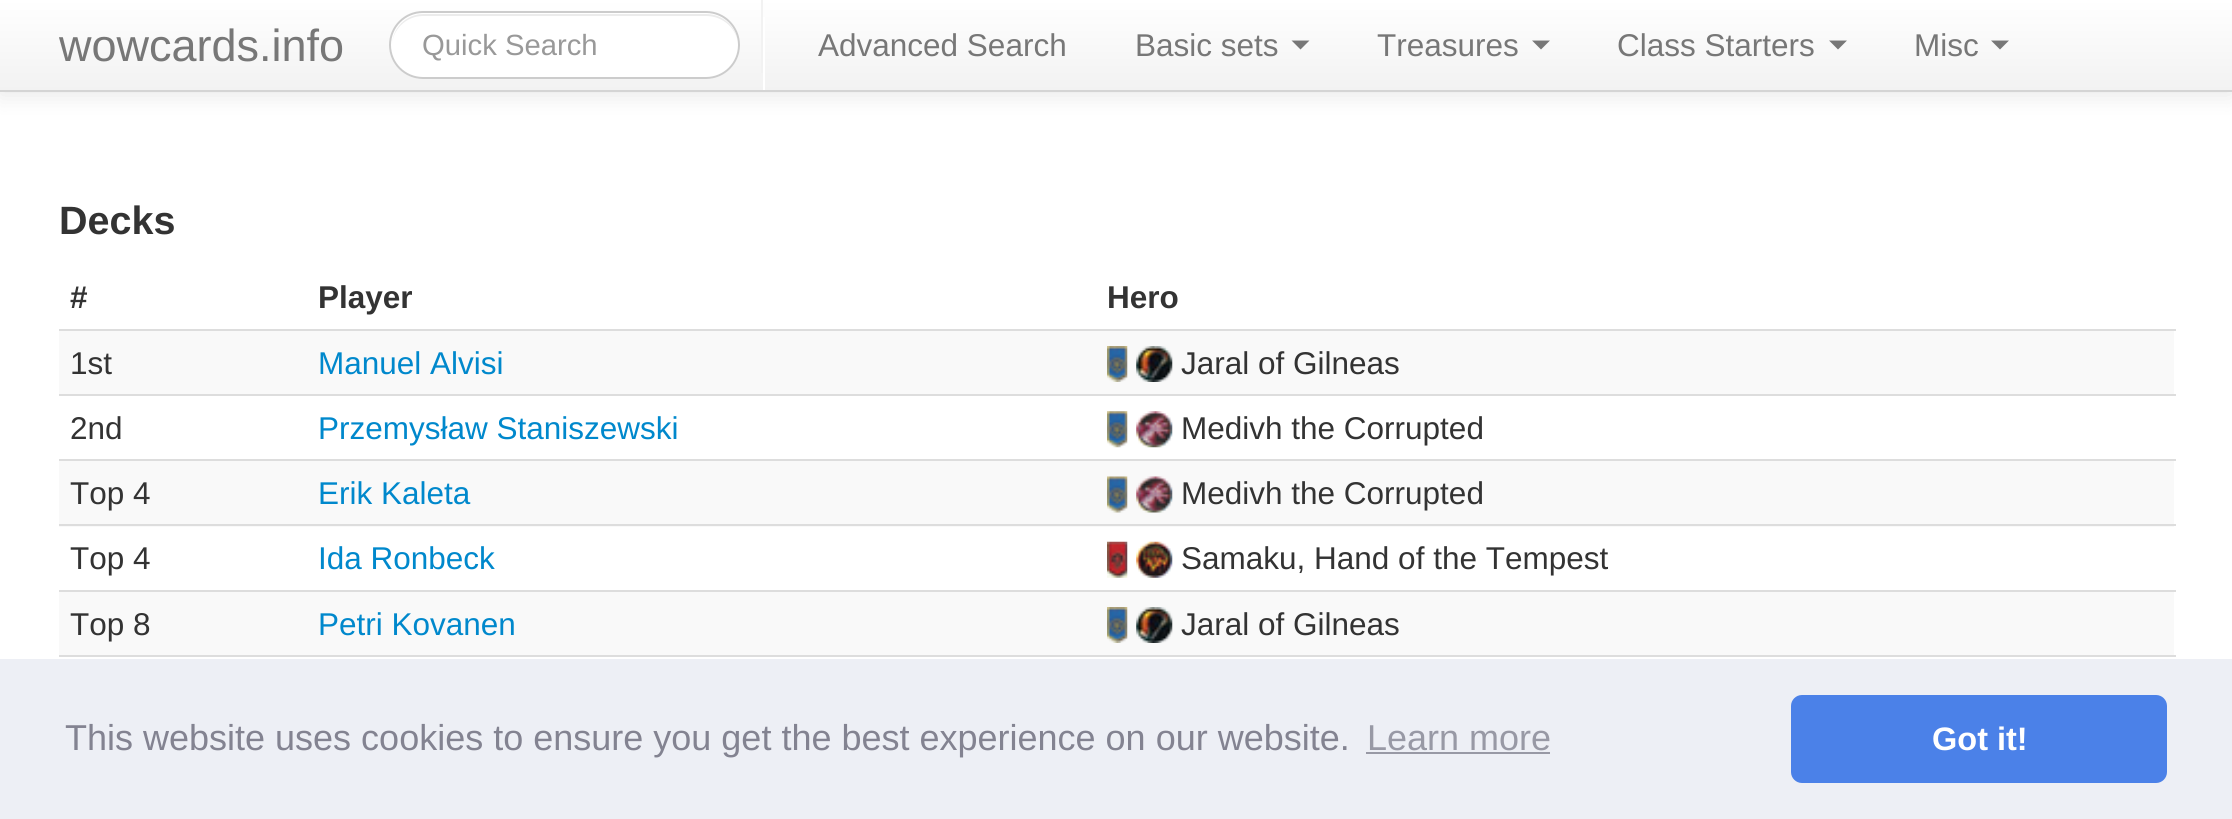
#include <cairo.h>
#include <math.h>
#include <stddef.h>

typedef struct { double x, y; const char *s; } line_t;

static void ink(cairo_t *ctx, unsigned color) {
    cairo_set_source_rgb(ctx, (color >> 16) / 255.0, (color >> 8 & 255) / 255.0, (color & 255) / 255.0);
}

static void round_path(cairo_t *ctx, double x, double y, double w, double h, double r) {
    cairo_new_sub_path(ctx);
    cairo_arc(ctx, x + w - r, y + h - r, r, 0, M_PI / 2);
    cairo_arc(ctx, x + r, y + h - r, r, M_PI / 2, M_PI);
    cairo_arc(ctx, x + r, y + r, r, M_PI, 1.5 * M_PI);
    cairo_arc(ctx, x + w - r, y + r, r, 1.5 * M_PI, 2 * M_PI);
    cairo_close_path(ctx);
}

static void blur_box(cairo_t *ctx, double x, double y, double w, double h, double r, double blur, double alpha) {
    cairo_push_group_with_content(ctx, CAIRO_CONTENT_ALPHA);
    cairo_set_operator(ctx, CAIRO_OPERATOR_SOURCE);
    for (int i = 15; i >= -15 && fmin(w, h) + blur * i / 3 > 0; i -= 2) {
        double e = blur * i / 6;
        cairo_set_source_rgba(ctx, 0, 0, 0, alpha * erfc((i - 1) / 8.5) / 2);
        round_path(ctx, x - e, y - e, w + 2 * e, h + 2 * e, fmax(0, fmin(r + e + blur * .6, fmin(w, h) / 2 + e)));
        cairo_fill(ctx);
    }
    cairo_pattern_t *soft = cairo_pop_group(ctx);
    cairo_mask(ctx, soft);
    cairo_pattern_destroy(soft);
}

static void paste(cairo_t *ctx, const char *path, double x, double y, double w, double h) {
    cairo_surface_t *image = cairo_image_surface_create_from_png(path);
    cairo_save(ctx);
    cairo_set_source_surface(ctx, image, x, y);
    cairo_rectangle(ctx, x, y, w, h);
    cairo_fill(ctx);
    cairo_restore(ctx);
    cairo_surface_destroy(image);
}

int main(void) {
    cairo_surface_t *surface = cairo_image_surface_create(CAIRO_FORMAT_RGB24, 2232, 819);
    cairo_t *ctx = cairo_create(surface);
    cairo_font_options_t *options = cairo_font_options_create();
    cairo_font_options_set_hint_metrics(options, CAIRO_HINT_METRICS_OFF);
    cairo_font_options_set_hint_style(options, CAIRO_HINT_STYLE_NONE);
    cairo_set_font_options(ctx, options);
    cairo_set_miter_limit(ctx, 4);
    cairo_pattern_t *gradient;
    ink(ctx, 0xFFFFFF);
    cairo_paint(ctx);
    ink(ctx, 0x000000);
    blur_box(ctx, 0, 2, 2232, 93, 0, 11, 0.1);
    gradient = cairo_pattern_create_linear(1116, 0, 1116, 90);
    cairo_pattern_add_color_stop_rgba(gradient, 0, 1, 1, 1, 1);
    cairo_pattern_add_color_stop_rgba(gradient, 1, 0.949, 0.949, 0.949, 1);
    cairo_set_source(ctx, gradient);
    cairo_pattern_destroy(gradient);
    cairo_rectangle(ctx, 0, 0, 2232, 90);
    cairo_fill(ctx);
    ink(ctx, 0xD4D4D4);
    cairo_rectangle(ctx, 0, 90, 2232, 2);
    cairo_fill(ctx);
    cairo_select_font_face(ctx, "Liberation Sans", CAIRO_FONT_SLANT_NORMAL, CAIRO_FONT_WEIGHT_NORMAL);
    cairo_set_font_size(ctx, 45);
    ink(ctx, 0x777777);
    cairo_move_to(ctx, 59, 61);
    cairo_show_text(ctx, "wowcards.info");
    ink(ctx, 0xFFFFFF);
    round_path(ctx, 389, 11, 351, 68, 34);
    cairo_fill(ctx);
    ink(ctx, 0xECECEC);
    cairo_new_path(ctx);
    cairo_move_to(ctx, 423, 16);
    cairo_line_to(ctx, 706, 16);
    cairo_curve_to(ctx, 724, 16, 738, 30, 738, 46);
    cairo_curve_to(ctx, 738, 28, 724, 14, 706, 14);
    cairo_line_to(ctx, 424, 14);
    cairo_curve_to(ctx, 406, 14, 392, 28, 392, 46);
    cairo_curve_to(ctx, 392, 30, 406, 16, 423, 16);
    cairo_close_path(ctx);
    cairo_fill(ctx);
    round_path(ctx, 390, 12, 349, 66, 33);
    ink(ctx, 0xCCCCCC);
    cairo_stroke(ctx);
    cairo_set_font_size(ctx, 29.25);
    ink(ctx, 0x999999);
    cairo_move_to(ctx, 422, 55);
    cairo_show_text(ctx, "Quick Search");
    ink(ctx, 0xFFFFFF);
    cairo_rectangle(ctx, 763, 17, 2, 73);
    cairo_fill(ctx);
    ink(ctx, 0xF2F2F2);
    cairo_rectangle(ctx, 761, 0, 2, 73);
    cairo_fill(ctx);
    cairo_set_font_size(ctx, 31.5);
    ink(ctx, 0x777777);
    cairo_move_to(ctx, 818, 56);
    cairo_show_text(ctx, "Advanced Search");
    cairo_move_to(ctx, 1135, 56);
    cairo_show_text(ctx, "Basic sets");
    cairo_new_path(ctx);
    cairo_move_to(ctx, 1291.5, 40.5);
    cairo_line_to(ctx, 1309.5, 40.5);
    cairo_line_to(ctx, 1300.5, 49.5);
    cairo_close_path(ctx);
    cairo_fill(ctx);
    cairo_move_to(ctx, 1377, 56);
    cairo_show_text(ctx, "Treasures");
    cairo_new_path(ctx);
    cairo_move_to(ctx, 1532, 40.5);
    cairo_line_to(ctx, 1550, 40.5);
    cairo_line_to(ctx, 1541, 49.5);
    cairo_close_path(ctx);
    cairo_fill(ctx);
    cairo_move_to(ctx, 1617, 56);
    cairo_show_text(ctx, "Class Starters");
    cairo_new_path(ctx);
    cairo_move_to(ctx, 1829, 40.5);
    cairo_line_to(ctx, 1847, 40.5);
    cairo_line_to(ctx, 1838, 49.5);
    cairo_close_path(ctx);
    cairo_fill(ctx);
    cairo_move_to(ctx, 1914, 56);
    cairo_show_text(ctx, "Misc");
    cairo_new_path(ctx);
    cairo_move_to(ctx, 1991, 40.5);
    cairo_line_to(ctx, 2009, 40.5);
    cairo_line_to(ctx, 2000, 49.5);
    cairo_close_path(ctx);
    cairo_fill(ctx);
    cairo_select_font_face(ctx, "Liberation Sans", CAIRO_FONT_SLANT_NORMAL, CAIRO_FONT_WEIGHT_BOLD);
    cairo_set_font_size(ctx, 39.5);
    ink(ctx, 0x333333);
    cairo_move_to(ctx, 59, 234);
    cairo_show_text(ctx, "Decks");
    cairo_set_font_size(ctx, 31.5);
    {
        static const line_t items[] = {
            {70, 308, "#"},
            {318, 308, "Player"},
            {1107, 308, "Hero"},
        };
        for (size_t i = 0; i < sizeof items / sizeof *items; i++) {
            cairo_move_to(ctx, items[i].x, items[i].y);
            cairo_show_text(ctx, items[i].s);
        }
    }
    ink(ctx, 0xF9F9F9);
    cairo_rectangle(ctx, 59, 331, 2115, 63);
    cairo_fill(ctx);
    cairo_select_font_face(ctx, "Liberation Sans", CAIRO_FONT_SLANT_NORMAL, CAIRO_FONT_WEIGHT_NORMAL);
    ink(ctx, 0x333333);
    cairo_move_to(ctx, 70, 374);
    cairo_show_text(ctx, "1st");
    ink(ctx, 0x0088CC);
    cairo_move_to(ctx, 318, 374);
    cairo_show_text(ctx, "Manuel Alvisi");
    ink(ctx, 0xDDDDDD);
    cairo_rectangle(ctx, 59, 329, 2117, 2);
    cairo_fill(ctx);
    paste(ctx, "media/1.png", 1107, 346, 21, 36);
    paste(ctx, "media/2.png", 1136, 346, 37, 36);
    ink(ctx, 0x333333);
    cairo_move_to(ctx, 1181, 374);
    cairo_show_text(ctx, "Jaral of Gilneas");
    cairo_move_to(ctx, 70, 439);
    cairo_show_text(ctx, "2nd");
    ink(ctx, 0x0088CC);
    cairo_move_to(ctx, 318, 439);
    cairo_show_text(ctx, "Przemysław Staniszewski");
    ink(ctx, 0xDDDDDD);
    cairo_rectangle(ctx, 59, 394, 2117, 2);
    cairo_fill(ctx);
    paste(ctx, "media/3.png", 1107, 411, 21, 37);
    paste(ctx, "media/4.png", 1136, 411, 37, 37);
    ink(ctx, 0x333333);
    cairo_move_to(ctx, 1181, 439);
    cairo_show_text(ctx, "Medivh the Corrupted");
    ink(ctx, 0xF9F9F9);
    cairo_rectangle(ctx, 59, 461, 2115, 66);
    cairo_fill(ctx);
    ink(ctx, 0x333333);
    cairo_move_to(ctx, 70, 504);
    cairo_show_text(ctx, "Top 4");
    ink(ctx, 0x0088CC);
    cairo_move_to(ctx, 318, 504);
    cairo_show_text(ctx, "Erik Kaleta");
    ink(ctx, 0xDDDDDD);
    cairo_rectangle(ctx, 59, 459, 2117, 2);
    cairo_fill(ctx);
    paste(ctx, "media/5.png", 1107, 476, 21, 37);
    paste(ctx, "media/6.png", 1136, 476, 37, 37);
    ink(ctx, 0x333333);
    cairo_move_to(ctx, 1181, 504);
    cairo_show_text(ctx, "Medivh the Corrupted");
    cairo_move_to(ctx, 70, 569);
    cairo_show_text(ctx, "Top 4");
    ink(ctx, 0x0088CC);
    cairo_move_to(ctx, 318, 569);
    cairo_show_text(ctx, "Ida Ronbeck");
    ink(ctx, 0xDDDDDD);
    cairo_rectangle(ctx, 59, 524, 2117, 2);
    cairo_fill(ctx);
    paste(ctx, "media/7.png", 1107, 541, 21, 37);
    paste(ctx, "media/8.png", 1136, 541, 37, 37);
    ink(ctx, 0x333333);
    cairo_move_to(ctx, 1181, 569);
    cairo_show_text(ctx, "Samaku, Hand of the Tempest");
    ink(ctx, 0xF9F9F9);
    cairo_rectangle(ctx, 59, 592, 2115, 63);
    cairo_fill(ctx);
    ink(ctx, 0x333333);
    cairo_move_to(ctx, 70, 635);
    cairo_show_text(ctx, "Top 8");
    ink(ctx, 0x0088CC);
    cairo_move_to(ctx, 318, 635);
    cairo_show_text(ctx, "Petri Kovanen");
    ink(ctx, 0xDDDDDD);
    cairo_rectangle(ctx, 59, 590, 2117, 2);
    cairo_fill(ctx);
    paste(ctx, "media/9.png", 1107, 607, 21, 36);
    paste(ctx, "media/10.png", 1136, 607, 37, 36);
    ink(ctx, 0x333333);
    cairo_move_to(ctx, 1181, 635);
    cairo_show_text(ctx, "Jaral of Gilneas");
    ink(ctx, 0xDDDDDD);
    cairo_rectangle(ctx, 59, 655, 2117, 2);
    cairo_fill(ctx);
    ink(ctx, 0xEDEFF5);
    cairo_rectangle(ctx, 0, 659, 2232, 160);
    cairo_fill(ctx);
    cairo_set_font_size(ctx, 36);
    ink(ctx, 0x838391);
    cairo_move_to(ctx, 65, 750);
    cairo_show_text(ctx, "This website uses cookies to ensure you get the best experience on our website.");
    ink(ctx, 0x9899A5);
    cairo_move_to(ctx, 1367, 750);
    cairo_show_text(ctx, "Learn more");
    cairo_rectangle(ctx, 1366, 752, 184, 2);
    cairo_fill(ctx);
    ink(ctx, 0x4B81E8);
    round_path(ctx, 1791, 695, 376, 88, 11);
    cairo_fill(ctx);
    cairo_select_font_face(ctx, "Liberation Sans", CAIRO_FONT_SLANT_NORMAL, CAIRO_FONT_WEIGHT_BOLD);
    cairo_set_font_size(ctx, 32.5);
    ink(ctx, 0xFFFFFF);
    cairo_move_to(ctx, 1932, 750);
    cairo_show_text(ctx, "Got it!");
    cairo_surface_write_to_png(surface, "image.png");
    cairo_font_options_destroy(options);
    cairo_destroy(ctx);
    cairo_surface_destroy(surface);
    return 0;
}
